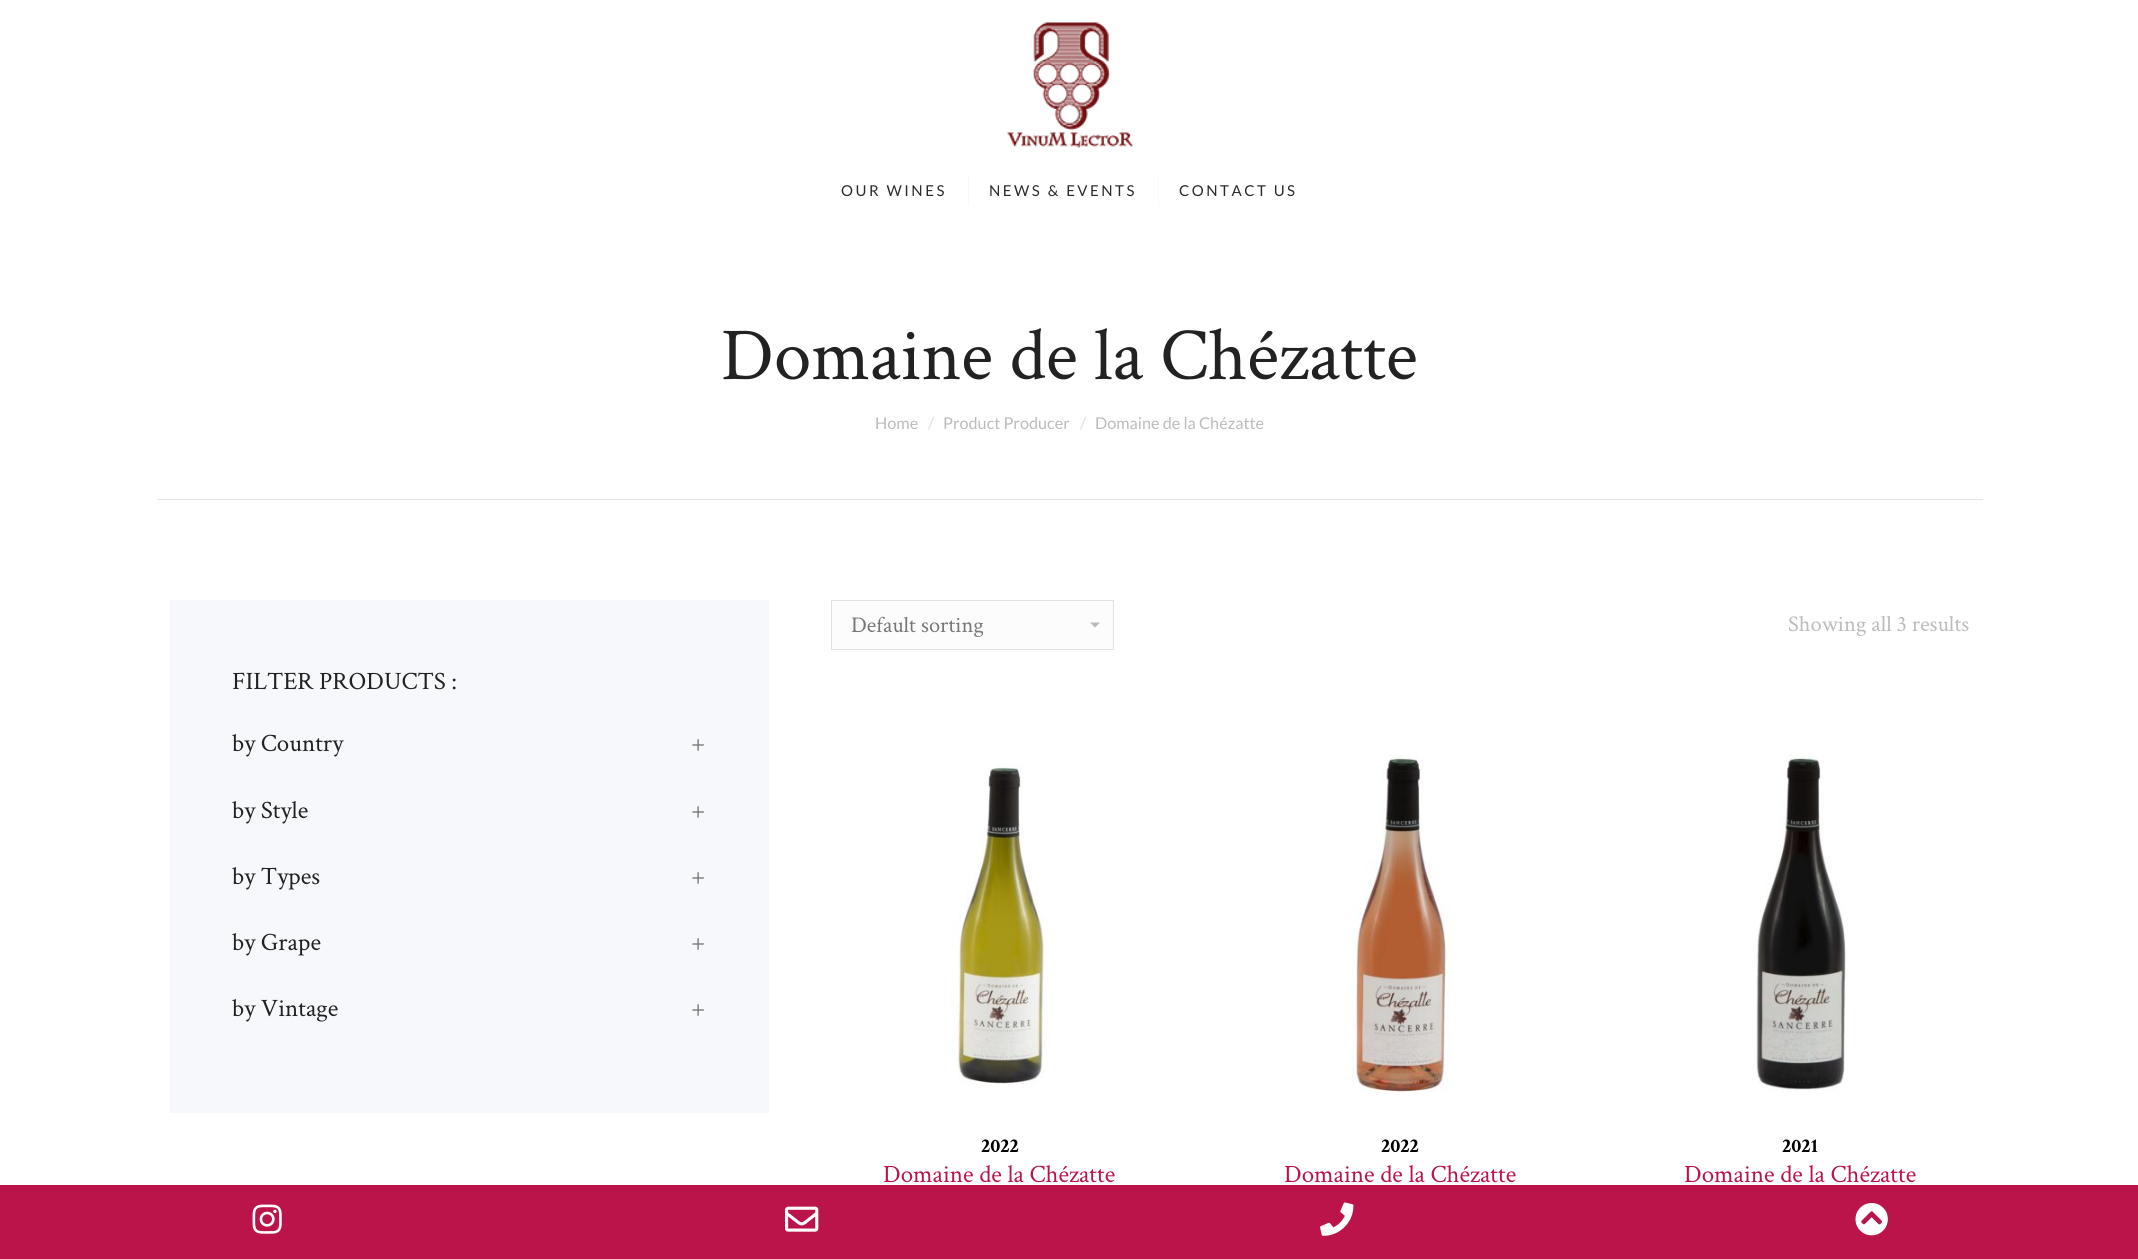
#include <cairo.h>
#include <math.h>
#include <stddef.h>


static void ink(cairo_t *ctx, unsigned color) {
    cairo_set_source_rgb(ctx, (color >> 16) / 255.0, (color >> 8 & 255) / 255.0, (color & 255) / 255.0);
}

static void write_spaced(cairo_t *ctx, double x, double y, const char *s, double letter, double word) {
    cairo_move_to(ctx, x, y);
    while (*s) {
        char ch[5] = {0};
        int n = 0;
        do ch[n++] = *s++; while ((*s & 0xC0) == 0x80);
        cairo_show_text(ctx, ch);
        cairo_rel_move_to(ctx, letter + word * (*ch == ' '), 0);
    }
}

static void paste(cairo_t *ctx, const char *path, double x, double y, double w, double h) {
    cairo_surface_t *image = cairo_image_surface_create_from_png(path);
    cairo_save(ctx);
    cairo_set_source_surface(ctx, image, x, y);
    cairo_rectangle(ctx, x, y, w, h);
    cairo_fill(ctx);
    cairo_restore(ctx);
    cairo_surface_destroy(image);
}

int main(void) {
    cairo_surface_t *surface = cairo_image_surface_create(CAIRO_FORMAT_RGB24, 2138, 1259);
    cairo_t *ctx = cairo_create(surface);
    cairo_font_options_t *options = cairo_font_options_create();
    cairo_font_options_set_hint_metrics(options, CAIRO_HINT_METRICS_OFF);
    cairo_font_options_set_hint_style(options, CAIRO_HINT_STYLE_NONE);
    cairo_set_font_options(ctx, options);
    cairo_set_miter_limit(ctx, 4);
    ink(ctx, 0xFFFFFF);
    cairo_paint(ctx);
    paste(ctx, "media/1.png", 1007, 22, 126, 126);
    cairo_select_font_face(ctx, "Lato", CAIRO_FONT_SLANT_NORMAL, CAIRO_FONT_WEIGHT_NORMAL);
    cairo_set_font_size(ctx, 15);
    ink(ctx, 0x2A2A2A);
    write_spaced(ctx, 841, 196, "OUR WINES", 2.5, 0);
    ink(ctx, 0xF8F8F8);
    cairo_rectangle(ctx, 968, 176, 1, 30);
    cairo_fill(ctx);
    ink(ctx, 0x2A2A2A);
    write_spaced(ctx, 989, 196, "NEWS & EVENTS", 2.5, 0);
    ink(ctx, 0xF8F8F8);
    cairo_rectangle(ctx, 1158, 176, 1, 30);
    cairo_fill(ctx);
    ink(ctx, 0x2A2A2A);
    write_spaced(ctx, 1179, 196, "CONTACT US", 2.5, 0);
    cairo_select_font_face(ctx, "Crimson Text", CAIRO_FONT_SLANT_NORMAL, CAIRO_FONT_WEIGHT_NORMAL);
    cairo_set_font_size(ctx, 75);
    ink(ctx, 0x222222);
    cairo_move_to(ctx, 721, 379);
    cairo_show_text(ctx, "Domaine de la Chézatte");
    cairo_select_font_face(ctx, "Lato", CAIRO_FONT_SLANT_NORMAL, CAIRO_FONT_WEIGHT_NORMAL);
    cairo_set_font_size(ctx, 16.25);
    ink(ctx, 0xBBBBBB);
    cairo_move_to(ctx, 875, 429);
    cairo_show_text(ctx, "Home");
    ink(ctx, 0xDDDDDD);
    cairo_move_to(ctx, 928, 429);
    cairo_show_text(ctx, "/");
    ink(ctx, 0xBBBBBB);
    cairo_move_to(ctx, 943, 429);
    cairo_show_text(ctx, "Product Producer");
    ink(ctx, 0xDDDDDD);
    cairo_move_to(ctx, 1080, 429);
    cairo_show_text(ctx, "/");
    ink(ctx, 0xBBBBBB);
    cairo_move_to(ctx, 1095, 429);
    cairo_show_text(ctx, "Domaine de la Chézatte");
    ink(ctx, 0xE4E4E4);
    cairo_rectangle(ctx, 158, 499, 1825, 1);
    cairo_fill(ctx);
    ink(ctx, 0xF7F8FC);
    cairo_rectangle(ctx, 170, 600, 599, 513);
    cairo_fill(ctx);
    cairo_select_font_face(ctx, "Crimson Text", CAIRO_FONT_SLANT_NORMAL, CAIRO_FONT_WEIGHT_NORMAL);
    cairo_set_font_size(ctx, 25);
    ink(ctx, 0x222222);
    cairo_move_to(ctx, 232, 689);
    cairo_show_text(ctx, "FILTER PRODUCTS :");
    cairo_move_to(ctx, 232, 751);
    cairo_show_text(ctx, "by Country");
    ink(ctx, 0x777777);
    cairo_move_to(ctx, 691, 751);
    cairo_show_text(ctx, "+");
    ink(ctx, 0x222222);
    cairo_move_to(ctx, 232, 818);
    cairo_show_text(ctx, "by Style");
    ink(ctx, 0x777777);
    cairo_move_to(ctx, 691, 818);
    cairo_show_text(ctx, "+");
    ink(ctx, 0x222222);
    cairo_move_to(ctx, 232, 884);
    cairo_show_text(ctx, "by Types");
    ink(ctx, 0x777777);
    cairo_move_to(ctx, 691, 884);
    cairo_show_text(ctx, "+");
    ink(ctx, 0x222222);
    cairo_move_to(ctx, 232, 950);
    cairo_show_text(ctx, "by Grape");
    ink(ctx, 0x777777);
    cairo_move_to(ctx, 691, 950);
    cairo_show_text(ctx, "+");
    ink(ctx, 0x222222);
    cairo_move_to(ctx, 232, 1016);
    cairo_show_text(ctx, "by Vintage");
    ink(ctx, 0x777777);
    cairo_move_to(ctx, 691, 1016);
    cairo_show_text(ctx, "+");
    ink(ctx, 0xFCFCFC);
    cairo_rectangle(ctx, 832, 601, 281, 48);
    cairo_fill(ctx);
    ink(ctx, 0xBABABA);
    cairo_new_path(ctx);
    cairo_move_to(ctx, 1090, 622.5);
    cairo_line_to(ctx, 1095, 627.5);
    cairo_line_to(ctx, 1100, 622.5);
    cairo_close_path(ctx);
    cairo_fill(ctx);
    cairo_rectangle(ctx, 831.5, 600.5, 282, 49);
    ink(ctx, 0xE1E1E1);
    cairo_set_line_width(ctx, 1);
    cairo_stroke(ctx);
    cairo_set_font_size(ctx, 22.5);
    ink(ctx, 0x777777);
    cairo_move_to(ctx, 851, 632);
    cairo_show_text(ctx, "Default sorting");
    ink(ctx, 0xBBBBBB);
    cairo_move_to(ctx, 1788, 631);
    cairo_show_text(ctx, "Showing all 3 results");
    paste(ctx, "media/2.png", 951, 763, 99, 322);
    cairo_select_font_face(ctx, "Crimson Text", CAIRO_FONT_SLANT_NORMAL, CAIRO_FONT_WEIGHT_BOLD);
    cairo_set_font_size(ctx, 20);
    ink(ctx, 0x000000);
    cairo_move_to(ctx, 981, 1152);
    cairo_show_text(ctx, "2022");
    cairo_select_font_face(ctx, "Crimson Text", CAIRO_FONT_SLANT_NORMAL, CAIRO_FONT_WEIGHT_NORMAL);
    cairo_set_font_size(ctx, 25);
    ink(ctx, 0xBA144B);
    cairo_move_to(ctx, 883, 1182);
    cairo_show_text(ctx, "Domaine de la Chézatte");
    paste(ctx, "media/3.png", 1351, 754, 101, 339);
    cairo_select_font_face(ctx, "Crimson Text", CAIRO_FONT_SLANT_NORMAL, CAIRO_FONT_WEIGHT_BOLD);
    cairo_set_font_size(ctx, 20);
    ink(ctx, 0x000000);
    cairo_move_to(ctx, 1381, 1152);
    cairo_show_text(ctx, "2022");
    cairo_select_font_face(ctx, "Crimson Text", CAIRO_FONT_SLANT_NORMAL, CAIRO_FONT_WEIGHT_NORMAL);
    cairo_set_font_size(ctx, 25);
    ink(ctx, 0xBA144B);
    cairo_move_to(ctx, 1284, 1182);
    cairo_show_text(ctx, "Domaine de la Chézatte");
    paste(ctx, "media/4.png", 1756, 753, 91, 338);
    cairo_select_font_face(ctx, "Crimson Text", CAIRO_FONT_SLANT_NORMAL, CAIRO_FONT_WEIGHT_BOLD);
    cairo_set_font_size(ctx, 20);
    ink(ctx, 0x000000);
    cairo_move_to(ctx, 1782, 1152);
    cairo_show_text(ctx, "2021");
    cairo_select_font_face(ctx, "Crimson Text", CAIRO_FONT_SLANT_NORMAL, CAIRO_FONT_WEIGHT_NORMAL);
    cairo_set_font_size(ctx, 25);
    ink(ctx, 0xBA144B);
    cairo_move_to(ctx, 1684, 1182);
    cairo_show_text(ctx, "Domaine de la Chézatte");
    cairo_rectangle(ctx, 0, 1185, 2138, 74);
    cairo_fill(ctx);
    paste(ctx, "media/5.png", 252, 1204, 30, 30);
    paste(ctx, "media/6.png", 785, 1206, 34, 26);
    paste(ctx, "media/7.png", 1320, 1202, 34, 34);
    paste(ctx, "media/8.png", 1855, 1203, 33, 33);
    cairo_surface_write_to_png(surface, "image.png");
    cairo_font_options_destroy(options);
    cairo_destroy(ctx);
    cairo_surface_destroy(surface);
    return 0;
}
